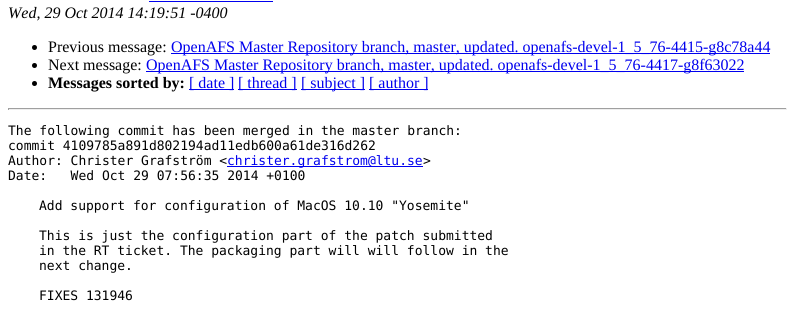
#include <cairo.h>
#include <math.h>
#include <stddef.h>

typedef struct { double x, y; const char *s; } line_t;
typedef struct { double x, y, w, h; unsigned color; } box_t;

static void ink(cairo_t *ctx, unsigned color) {
    cairo_set_source_rgb(ctx, (color >> 16) / 255.0, (color >> 8 & 255) / 255.0, (color & 255) / 255.0);
}

int main(void) {
    cairo_surface_t *surface = cairo_image_surface_create(CAIRO_FORMAT_RGB24, 795, 318);
    cairo_t *ctx = cairo_create(surface);
    cairo_font_options_t *options = cairo_font_options_create();
    cairo_font_options_set_hint_metrics(options, CAIRO_HINT_METRICS_OFF);
    cairo_font_options_set_hint_style(options, CAIRO_HINT_STYLE_NONE);
    cairo_set_font_options(ctx, options);
    cairo_set_miter_limit(ctx, 4);
    ink(ctx, 0xFFFFFF);
    cairo_paint(ctx);
    ink(ctx, 0x0000EE);
    cairo_rectangle(ctx, 149, 1, 124, 1);
    cairo_fill(ctx);
    cairo_select_font_face(ctx, "Liberation Serif", CAIRO_FONT_SLANT_ITALIC, CAIRO_FONT_WEIGHT_NORMAL);
    cairo_set_font_size(ctx, 16);
    ink(ctx, 0x000000);
    cairo_move_to(ctx, 8, 18);
    cairo_show_text(ctx, "Wed, 29 Oct 2014 14:19:51 -0400");
    cairo_new_path(ctx);
    cairo_arc(ctx, 34.5, 47.5, 2.5, 0, 2 * M_PI);
    cairo_fill(ctx);
    cairo_select_font_face(ctx, "Liberation Serif", CAIRO_FONT_SLANT_NORMAL, CAIRO_FONT_WEIGHT_NORMAL);
    cairo_move_to(ctx, 48, 52);
    cairo_show_text(ctx, "Previous message:");
    ink(ctx, 0x0000EE);
    cairo_rectangle(ctx, 171, 53, 599, 1);
    cairo_fill(ctx);
    cairo_move_to(ctx, 171, 52);
    cairo_show_text(ctx, "OpenAFS Master Repository branch, master, updated. openafs-devel-1_5_76-4415-g8c78a44");
    ink(ctx, 0x000000);
    cairo_new_path(ctx);
    cairo_arc(ctx, 34.5, 65.5, 2.5, 0, 2 * M_PI);
    cairo_fill(ctx);
    cairo_move_to(ctx, 48, 70);
    cairo_show_text(ctx, "Next message:");
    ink(ctx, 0x0000EE);
    cairo_rectangle(ctx, 146, 71, 598, 1);
    cairo_fill(ctx);
    cairo_move_to(ctx, 146, 70);
    cairo_show_text(ctx, "OpenAFS Master Repository branch, master, updated. openafs-devel-1_5_76-4417-g8f63022");
    ink(ctx, 0x000000);
    cairo_new_path(ctx);
    cairo_arc(ctx, 34.5, 83.5, 2.5, 0, 2 * M_PI);
    cairo_fill(ctx);
    cairo_select_font_face(ctx, "Liberation Serif", CAIRO_FONT_SLANT_NORMAL, CAIRO_FONT_WEIGHT_BOLD);
    cairo_move_to(ctx, 48, 88);
    cairo_show_text(ctx, "Messages sorted by:");
    ink(ctx, 0x0000EE);
    cairo_rectangle(ctx, 189, 89, 45, 1);
    cairo_fill(ctx);
    cairo_select_font_face(ctx, "Liberation Serif", CAIRO_FONT_SLANT_NORMAL, CAIRO_FONT_WEIGHT_NORMAL);
    cairo_move_to(ctx, 189, 88);
    cairo_show_text(ctx, "[ date ]");
    cairo_rectangle(ctx, 238, 89, 59, 1);
    cairo_fill(ctx);
    cairo_move_to(ctx, 238, 88);
    cairo_show_text(ctx, "[ thread ]");
    cairo_rectangle(ctx, 301, 89, 64, 1);
    cairo_fill(ctx);
    cairo_move_to(ctx, 301, 88);
    cairo_show_text(ctx, "[ subject ]");
    cairo_rectangle(ctx, 369, 89, 59, 1);
    cairo_fill(ctx);
    cairo_move_to(ctx, 369, 88);
    cairo_show_text(ctx, "[ author ]");
    {
        static const box_t items[] = {
            {8, 108, 779, 1, 0x9F9F9F},
            {786, 108, 1, 2, 0xEEEEEE},
            {8, 109, 779, 1, 0xEEEEEE},
            {8, 108, 1, 2, 0x9F9F9F},
        };
        for (size_t i = 0; i < sizeof items / sizeof *items; i++) {
            ink(ctx, items[i].color);
            cairo_rectangle(ctx, items[i].x, items[i].y, items[i].w, items[i].h);
            cairo_fill(ctx);
        }
    }
    cairo_select_font_face(ctx, "DejaVu Sans Mono", CAIRO_FONT_SLANT_NORMAL, CAIRO_FONT_WEIGHT_NORMAL);
    cairo_set_font_size(ctx, 13);
    ink(ctx, 0x000000);
    {
        static const line_t items[] = {
            {8, 135, "The following commit has been merged in the master branch:"},
            {8, 150, "commit 4109785a891d802194ad11edb600a61de316d262"},
            {8, 165, "Author: Christer Grafström <"},
        };
        for (size_t i = 0; i < sizeof items / sizeof *items; i++) {
            cairo_move_to(ctx, items[i].x, items[i].y);
            cairo_show_text(ctx, items[i].s);
        }
    }
    ink(ctx, 0x0000EE);
    cairo_rectangle(ctx, 227, 166, 196, 1);
    cairo_fill(ctx);
    cairo_move_to(ctx, 227, 165);
    cairo_show_text(ctx, "christer.grafstrom@ltu.se");
    ink(ctx, 0x000000);
    {
        static const line_t items[] = {
            {423, 165, ">"},
            {8, 180, "Date:   Wed Oct 29 07:56:35 2014 +0100"},
            {39, 210, "Add support for configuration of MacOS 10.10 \"Yosemite\""},
            {39, 240, "This is just the configuration part of the patch submitted"},
            {39, 255, "in the RT ticket. The packaging part will will follow in the"},
            {39, 270, "next change."},
            {39, 300, "FIXES 131946"},
        };
        for (size_t i = 0; i < sizeof items / sizeof *items; i++) {
            cairo_move_to(ctx, items[i].x, items[i].y);
            cairo_show_text(ctx, items[i].s);
        }
    }
    cairo_surface_write_to_png(surface, "image.png");
    cairo_font_options_destroy(options);
    cairo_destroy(ctx);
    cairo_surface_destroy(surface);
    return 0;
}
